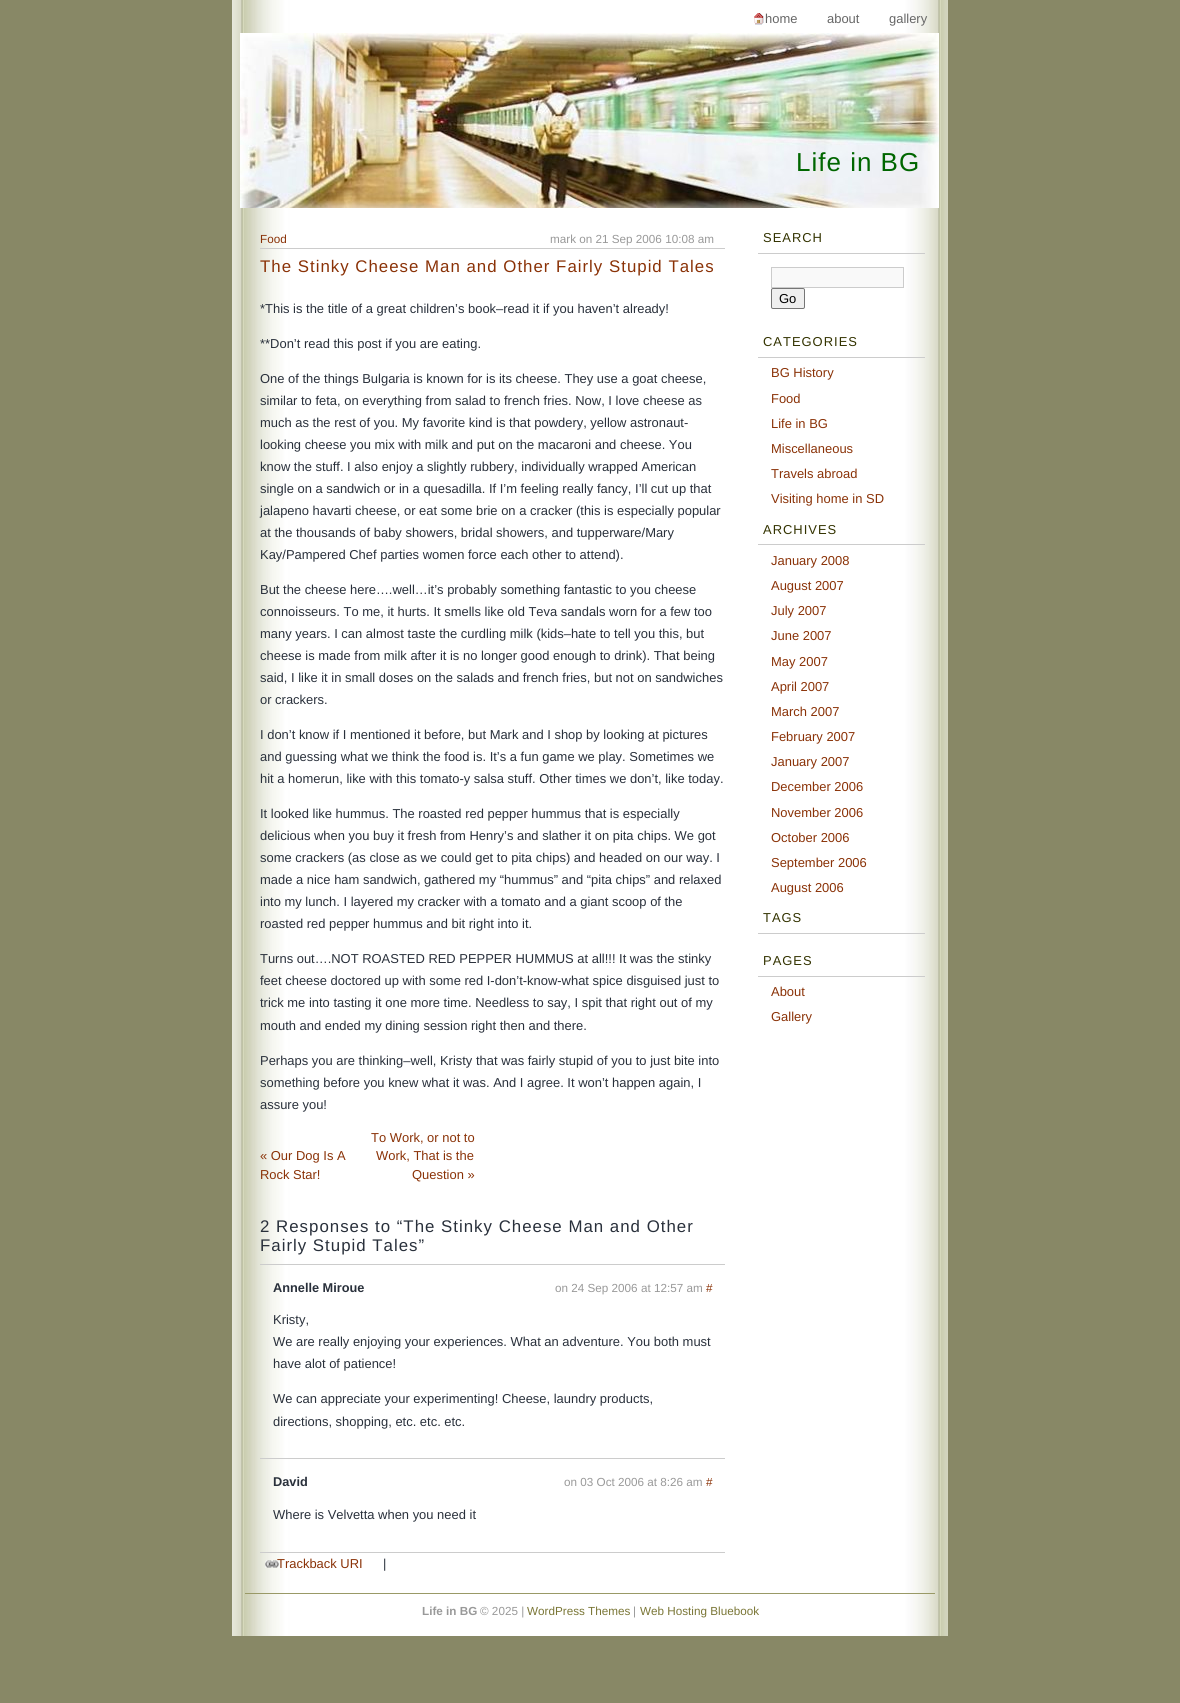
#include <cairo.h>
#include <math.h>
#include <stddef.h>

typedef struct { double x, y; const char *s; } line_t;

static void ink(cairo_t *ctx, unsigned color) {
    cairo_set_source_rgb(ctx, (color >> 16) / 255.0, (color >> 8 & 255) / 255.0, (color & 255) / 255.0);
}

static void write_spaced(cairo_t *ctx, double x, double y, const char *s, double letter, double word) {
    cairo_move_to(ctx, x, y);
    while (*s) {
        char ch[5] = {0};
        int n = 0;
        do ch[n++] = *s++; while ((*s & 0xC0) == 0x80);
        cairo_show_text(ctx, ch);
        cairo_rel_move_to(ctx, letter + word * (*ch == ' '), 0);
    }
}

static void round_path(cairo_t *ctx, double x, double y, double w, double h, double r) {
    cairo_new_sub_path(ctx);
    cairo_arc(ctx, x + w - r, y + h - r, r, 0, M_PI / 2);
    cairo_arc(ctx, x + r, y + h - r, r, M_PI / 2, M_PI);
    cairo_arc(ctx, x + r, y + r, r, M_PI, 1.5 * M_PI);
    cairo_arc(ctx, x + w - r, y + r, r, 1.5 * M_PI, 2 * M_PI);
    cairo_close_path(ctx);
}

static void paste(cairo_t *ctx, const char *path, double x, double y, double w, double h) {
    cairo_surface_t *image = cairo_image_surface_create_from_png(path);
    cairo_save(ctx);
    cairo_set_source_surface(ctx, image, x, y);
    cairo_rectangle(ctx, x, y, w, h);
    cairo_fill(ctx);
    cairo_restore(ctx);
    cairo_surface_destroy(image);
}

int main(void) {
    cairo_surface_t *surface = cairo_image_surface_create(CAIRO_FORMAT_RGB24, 1180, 1703);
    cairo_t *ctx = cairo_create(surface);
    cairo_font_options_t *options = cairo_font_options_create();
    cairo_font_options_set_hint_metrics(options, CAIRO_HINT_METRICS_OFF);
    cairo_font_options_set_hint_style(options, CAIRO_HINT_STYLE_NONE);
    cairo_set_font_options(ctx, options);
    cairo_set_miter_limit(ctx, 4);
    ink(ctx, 0x888866);
    cairo_paint(ctx);
    paste(ctx, "media/1.png", 232, 0, 716, 1636);
    paste(ctx, "media/2.png", 754, 13, 10, 12);
    cairo_select_font_face(ctx, "Liberation Sans", CAIRO_FONT_SLANT_NORMAL, CAIRO_FONT_WEIGHT_NORMAL);
    cairo_set_font_size(ctx, 12.95);
    ink(ctx, 0x666666);
    {
        static const line_t items[] = {
            {765, 23, "home"},
            {827, 23, "about"},
            {889, 23, "gallery"},
        };
        for (size_t i = 0; i < sizeof items / sizeof *items; i++) {
            cairo_move_to(ctx, items[i].x, items[i].y);
            cairo_show_text(ctx, items[i].s);
        }
    }
    paste(ctx, "media/3.png", 240, 33, 699, 175);
    cairo_set_font_size(ctx, 26);
    ink(ctx, 0x006600);
    write_spaced(ctx, 796, 171, "Life in BG", 1, 0);
    ink(ctx, 0xCCCCCC);
    cairo_rectangle(ctx, 260, 248, 465, 1);
    cairo_fill(ctx);
    cairo_set_font_size(ctx, 11.7);
    ink(ctx, 0x8A3207);
    cairo_move_to(ctx, 260, 243);
    cairo_show_text(ctx, "Food");
    ink(ctx, 0x999999);
    cairo_move_to(ctx, 550, 243);
    cairo_show_text(ctx, "mark on 21 Sep 2006 10:08 am");
    cairo_set_font_size(ctx, 16.85);
    ink(ctx, 0x8A3207);
    write_spaced(ctx, 260, 272, "The Stinky Cheese Man and Other Fairly Stupid Tales", 1, 0);
    cairo_set_font_size(ctx, 12.95);
    ink(ctx, 0x29303B);
    {
        static const line_t items[] = {
            {260, 313, "*This is the title of a great children’s book–read it if you haven’t already!"},
            {260, 348, "**Don’t read this post if you are eating."},
            {260, 383, "One of the things Bulgaria is known for is its cheese. They use a goat cheese,"},
            {260, 405, "similar to feta, on everything from salad to french fries. Now, I love cheese as"},
            {260, 427, "much as the rest of you. My favorite kind is that powdery, yellow astronaut-"},
            {260, 449, "looking cheese you mix with milk and put on the macaroni and cheese. You"},
            {260, 471, "know the stuff. I also enjoy a slightly rubbery, individually wrapped American"},
            {260, 493, "single on a sandwich or in a quesadilla. If I’m feeling really fancy, I’ll cut up that"},
            {260, 515, "jalapeno havarti cheese, or eat some brie on a cracker (this is especially popular"},
            {260, 537, "at the thousands of baby showers, bridal showers, and tupperware/Mary"},
            {260, 559, "Kay/Pampered Chef parties women force each other to attend)."},
            {260, 594, "But the cheese here….well…it’s probably something fantastic to you cheese"},
            {260, 616, "connoisseurs. To me, it hurts. It smells like old Teva sandals worn for a few too"},
            {260, 638, "many years. I can almost taste the curdling milk (kids–hate to tell you this, but"},
            {260, 660, "cheese is made from milk after it is no longer good enough to drink). That being"},
            {260, 682, "said, I like it in small doses on the salads and french fries, but not on sandwiches"},
            {260, 704, "or crackers."},
            {260, 739, "I don’t know if I mentioned it before, but Mark and I shop by looking at pictures"},
            {260, 761, "and guessing what we think the food is. It’s a fun game we play. Sometimes we"},
            {260, 783, "hit a homerun, like with this tomato-y salsa stuff. Other times we don’t, like today."},
            {260, 818, "It looked like hummus. The roasted red pepper hummus that is especially"},
            {260, 840, "delicious when you buy it fresh from Henry’s and slather it on pita chips. We got"},
            {260, 862, "some crackers (as close as we could get to pita chips) and headed on our way. I"},
            {260, 884, "made a nice ham sandwich, gathered my “hummus” and “pita chips” and relaxed"},
            {260, 906, "into my lunch. I layered my cracker with a tomato and a giant scoop of the"},
            {260, 928, "roasted red pepper hummus and bit right into it."},
            {260, 963, "Turns out….NOT ROASTED RED PEPPER HUMMUS at all!!! It was the stinky"},
            {260, 985, "feet cheese doctored up with some red I-don’t-know-what spice disguised just to"},
            {260, 1007, "trick me into tasting it one more time. Needless to say, I spit that right out of my"},
            {260, 1030, "mouth and ended my dining session right then and there."},
            {260, 1065, "Perhaps you are thinking–well, Kristy that was fairly stupid of you to just bite into"},
            {260, 1087, "something before you knew what it was. And I agree. It won’t happen again, I"},
            {260, 1109, "assure you!"},
        };
        for (size_t i = 0; i < sizeof items / sizeof *items; i++) {
            cairo_move_to(ctx, items[i].x, items[i].y);
            cairo_show_text(ctx, items[i].s);
        }
    }
    ink(ctx, 0x8A3207);
    {
        static const line_t items[] = {
            {260, 1160, "« Our Dog Is A"},
            {260, 1179, "Rock Star!"},
            {371, 1142, "To Work, or not to"},
            {376, 1160, "Work, That is the"},
            {412, 1179, "Question »"},
        };
        for (size_t i = 0; i < sizeof items / sizeof *items; i++) {
            cairo_move_to(ctx, items[i].x, items[i].y);
            cairo_show_text(ctx, items[i].s);
        }
    }
    cairo_set_font_size(ctx, 16.85);
    ink(ctx, 0x29303B);
    write_spaced(ctx, 260, 1232, "2 Responses to “The Stinky Cheese Man and Other", 1, 0);
    write_spaced(ctx, 260, 1251, "Fairly Stupid Tales”", 1, 0);
    ink(ctx, 0xCCCCCC);
    cairo_rectangle(ctx, 260, 1264, 465, 1);
    cairo_fill(ctx);
    cairo_rectangle(ctx, 260, 1458, 465, 1);
    cairo_fill(ctx);
    cairo_select_font_face(ctx, "Liberation Sans", CAIRO_FONT_SLANT_NORMAL, CAIRO_FONT_WEIGHT_BOLD);
    cairo_set_font_size(ctx, 12.75);
    ink(ctx, 0x29303B);
    cairo_move_to(ctx, 273, 1292);
    cairo_show_text(ctx, "Annelle Miroue");
    cairo_select_font_face(ctx, "Liberation Sans", CAIRO_FONT_SLANT_NORMAL, CAIRO_FONT_WEIGHT_NORMAL);
    cairo_set_font_size(ctx, 11.7);
    ink(ctx, 0x999999);
    cairo_move_to(ctx, 555, 1292);
    cairo_show_text(ctx, "on 24 Sep 2006 at 12:57 am");
    ink(ctx, 0x8A3207);
    cairo_move_to(ctx, 706, 1292);
    cairo_show_text(ctx, "#");
    cairo_set_font_size(ctx, 12.95);
    ink(ctx, 0x29303B);
    {
        static const line_t items[] = {
            {273, 1324, "Kristy,"},
            {273, 1346, "We are really enjoying your experiences. What an adventure. You both must"},
            {273, 1368, "have alot of patience!"},
            {273, 1403, "We can appreciate your experimenting! Cheese, laundry products,"},
            {273, 1426, "directions, shopping, etc. etc. etc."},
        };
        for (size_t i = 0; i < sizeof items / sizeof *items; i++) {
            cairo_move_to(ctx, items[i].x, items[i].y);
            cairo_show_text(ctx, items[i].s);
        }
    }
    ink(ctx, 0xCCCCCC);
    cairo_rectangle(ctx, 260, 1552, 465, 1);
    cairo_fill(ctx);
    cairo_select_font_face(ctx, "Liberation Sans", CAIRO_FONT_SLANT_NORMAL, CAIRO_FONT_WEIGHT_BOLD);
    cairo_set_font_size(ctx, 12.75);
    ink(ctx, 0x29303B);
    cairo_move_to(ctx, 273, 1486);
    cairo_show_text(ctx, "David");
    cairo_select_font_face(ctx, "Liberation Sans", CAIRO_FONT_SLANT_NORMAL, CAIRO_FONT_WEIGHT_NORMAL);
    cairo_set_font_size(ctx, 11.7);
    ink(ctx, 0x999999);
    cairo_move_to(ctx, 564, 1486);
    cairo_show_text(ctx, "on 03 Oct 2006 at 8:26 am");
    ink(ctx, 0x8A3207);
    cairo_move_to(ctx, 706, 1486);
    cairo_show_text(ctx, "#");
    cairo_set_font_size(ctx, 12.95);
    ink(ctx, 0x29303B);
    cairo_move_to(ctx, 273, 1519);
    cairo_show_text(ctx, "Where is Velvetta when you need it");
    paste(ctx, "media/4.png", 265, 1560, 14, 8);
    ink(ctx, 0x8A3207);
    cairo_move_to(ctx, 277, 1568);
    cairo_show_text(ctx, "Trackback URI");
    ink(ctx, 0x29303B);
    cairo_move_to(ctx, 383, 1568);
    cairo_show_text(ctx, "|");
    ink(ctx, 0xCCCCCC);
    cairo_rectangle(ctx, 758, 253, 167, 1);
    cairo_fill(ctx);
    ink(ctx, 0x333300);
    write_spaced(ctx, 763, 242, "SEARCH", 1, 0);
    ink(ctx, 0xF9F9F9);
    cairo_rectangle(ctx, 771.5, 267.5, 132, 20);
    cairo_fill_preserve(ctx);
    ink(ctx, 0xCCCCCC);
    cairo_set_line_width(ctx, 1);
    cairo_stroke(ctx);
    ink(ctx, 0xEFEFEF);
    round_path(ctx, 771.5, 288.5, 33, 20, 1.5);
    cairo_fill_preserve(ctx);
    ink(ctx, 0x767676);
    cairo_stroke(ctx);
    cairo_set_font_size(ctx, 13);
    ink(ctx, 0x000000);
    cairo_move_to(ctx, 779, 303);
    cairo_show_text(ctx, "Go");
    ink(ctx, 0xCCCCCC);
    cairo_rectangle(ctx, 758, 357, 167, 1);
    cairo_fill(ctx);
    cairo_set_font_size(ctx, 12.95);
    ink(ctx, 0x333300);
    write_spaced(ctx, 763, 346, "CATEGORIES", 1, 0);
    ink(ctx, 0x8A3207);
    {
        static const line_t items[] = {
            {771, 377, "BG History"},
            {771, 403, "Food"},
            {771, 428, "Life in BG"},
            {771, 453, "Miscellaneous"},
            {771, 478, "Travels abroad"},
            {771, 503, "Visiting home in SD"},
        };
        for (size_t i = 0; i < sizeof items / sizeof *items; i++) {
            cairo_move_to(ctx, items[i].x, items[i].y);
            cairo_show_text(ctx, items[i].s);
        }
    }
    ink(ctx, 0xCCCCCC);
    cairo_rectangle(ctx, 758, 544, 167, 1);
    cairo_fill(ctx);
    ink(ctx, 0x333300);
    write_spaced(ctx, 763, 534, "ARCHIVES", 1, 0);
    ink(ctx, 0x8A3207);
    {
        static const line_t items[] = {
            {771, 565, "January 2008"},
            {771, 590, "August 2007"},
            {771, 615, "July 2007"},
            {771, 640, "June 2007"},
            {771, 666, "May 2007"},
            {771, 691, "April 2007"},
            {771, 716, "March 2007"},
            {771, 741, "February 2007"},
            {771, 766, "January 2007"},
            {771, 791, "December 2006"},
            {771, 817, "November 2006"},
            {771, 842, "October 2006"},
            {771, 867, "September 2006"},
            {771, 892, "August 2006"},
        };
        for (size_t i = 0; i < sizeof items / sizeof *items; i++) {
            cairo_move_to(ctx, items[i].x, items[i].y);
            cairo_show_text(ctx, items[i].s);
        }
    }
    ink(ctx, 0xCCCCCC);
    cairo_rectangle(ctx, 758, 933, 167, 1);
    cairo_fill(ctx);
    ink(ctx, 0x333300);
    write_spaced(ctx, 763, 922, "TAGS", 1, 0);
    ink(ctx, 0xCCCCCC);
    cairo_rectangle(ctx, 758, 976, 167, 1);
    cairo_fill(ctx);
    ink(ctx, 0x333300);
    write_spaced(ctx, 763, 965, "PAGES", 1, 0);
    ink(ctx, 0x8A3207);
    cairo_move_to(ctx, 771, 996);
    cairo_show_text(ctx, "About");
    cairo_move_to(ctx, 771, 1021);
    cairo_show_text(ctx, "Gallery");
    ink(ctx, 0x999966);
    cairo_rectangle(ctx, 245, 1593, 690, 1);
    cairo_fill(ctx);
    cairo_select_font_face(ctx, "Liberation Sans", CAIRO_FONT_SLANT_NORMAL, CAIRO_FONT_WEIGHT_BOLD);
    cairo_set_font_size(ctx, 11.7);
    ink(ctx, 0x999999);
    cairo_move_to(ctx, 422, 1615);
    cairo_show_text(ctx, "Life in BG");
    cairo_select_font_face(ctx, "Liberation Sans", CAIRO_FONT_SLANT_NORMAL, CAIRO_FONT_WEIGHT_NORMAL);
    cairo_move_to(ctx, 480, 1615);
    cairo_show_text(ctx, "© 2025 |");
    ink(ctx, 0x7A7636);
    cairo_move_to(ctx, 527, 1615);
    cairo_show_text(ctx, "WordPress Themes");
    ink(ctx, 0x999999);
    cairo_move_to(ctx, 633, 1615);
    cairo_show_text(ctx, "|");
    ink(ctx, 0x7A7636);
    cairo_move_to(ctx, 640, 1615);
    cairo_show_text(ctx, "Web Hosting Bluebook");
    cairo_surface_write_to_png(surface, "image.png");
    cairo_font_options_destroy(options);
    cairo_destroy(ctx);
    cairo_surface_destroy(surface);
    return 0;
}
